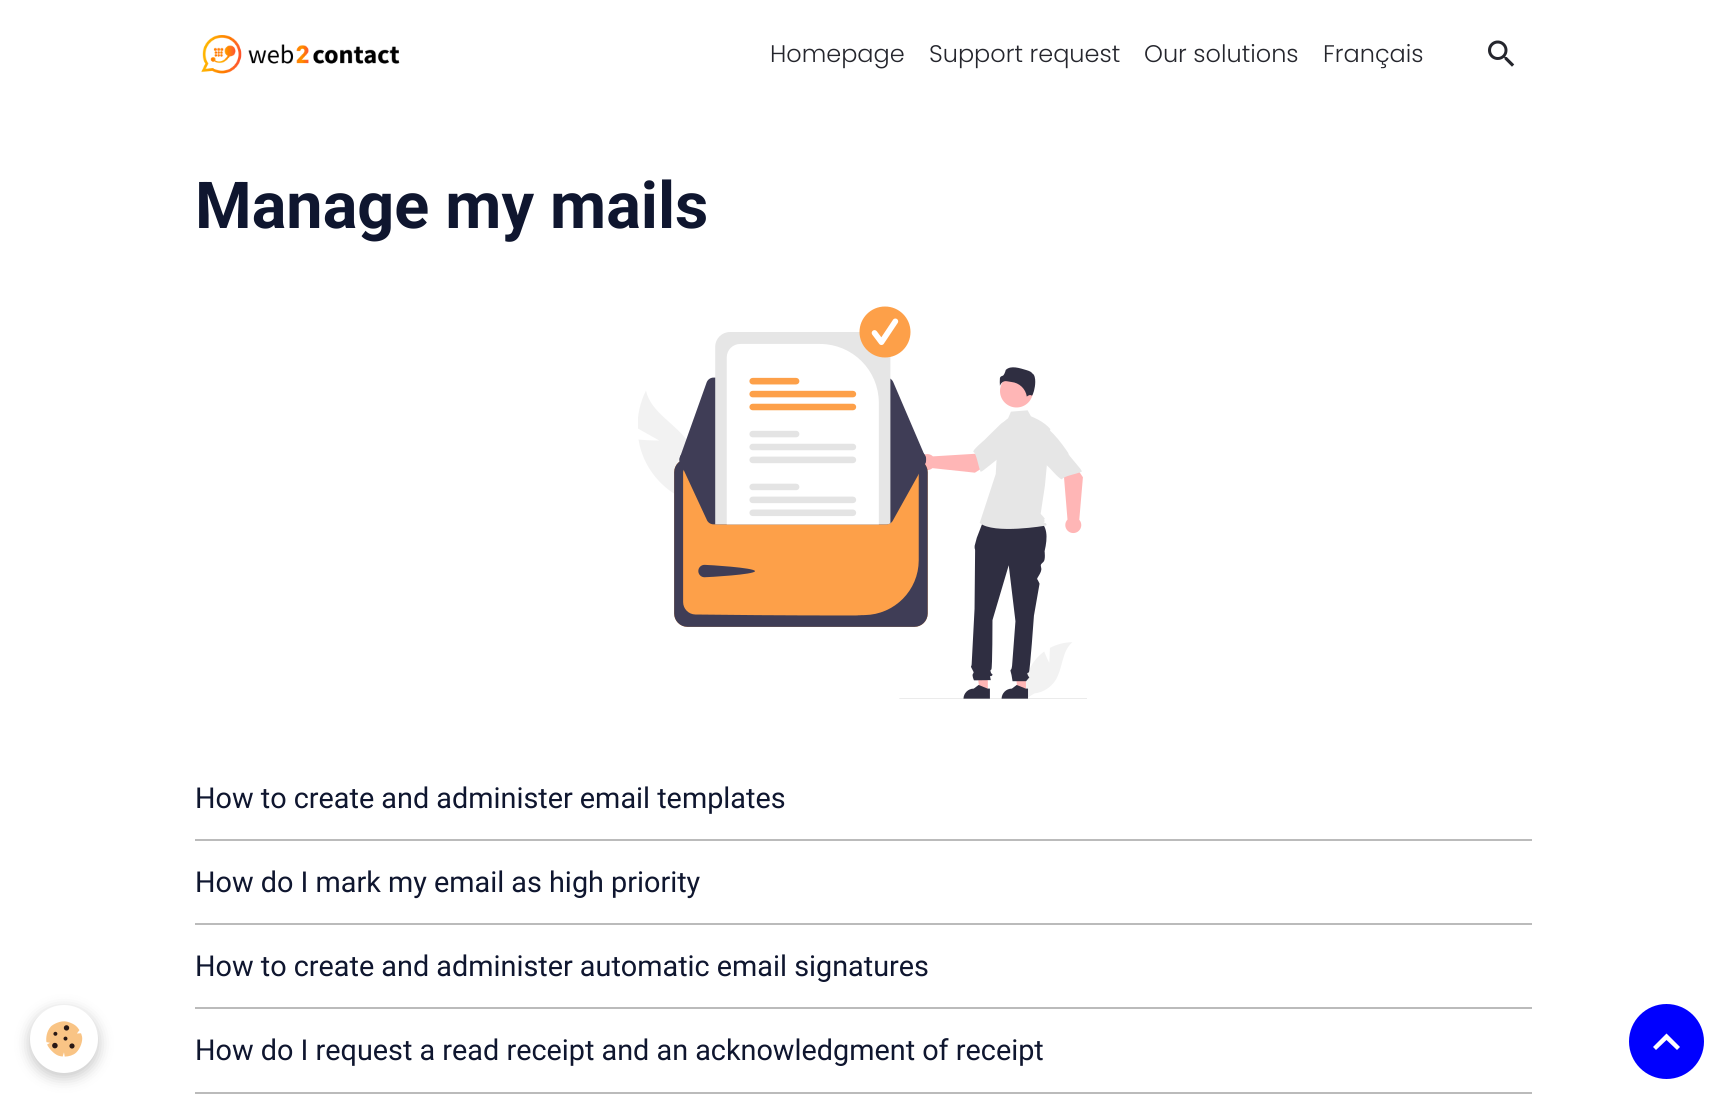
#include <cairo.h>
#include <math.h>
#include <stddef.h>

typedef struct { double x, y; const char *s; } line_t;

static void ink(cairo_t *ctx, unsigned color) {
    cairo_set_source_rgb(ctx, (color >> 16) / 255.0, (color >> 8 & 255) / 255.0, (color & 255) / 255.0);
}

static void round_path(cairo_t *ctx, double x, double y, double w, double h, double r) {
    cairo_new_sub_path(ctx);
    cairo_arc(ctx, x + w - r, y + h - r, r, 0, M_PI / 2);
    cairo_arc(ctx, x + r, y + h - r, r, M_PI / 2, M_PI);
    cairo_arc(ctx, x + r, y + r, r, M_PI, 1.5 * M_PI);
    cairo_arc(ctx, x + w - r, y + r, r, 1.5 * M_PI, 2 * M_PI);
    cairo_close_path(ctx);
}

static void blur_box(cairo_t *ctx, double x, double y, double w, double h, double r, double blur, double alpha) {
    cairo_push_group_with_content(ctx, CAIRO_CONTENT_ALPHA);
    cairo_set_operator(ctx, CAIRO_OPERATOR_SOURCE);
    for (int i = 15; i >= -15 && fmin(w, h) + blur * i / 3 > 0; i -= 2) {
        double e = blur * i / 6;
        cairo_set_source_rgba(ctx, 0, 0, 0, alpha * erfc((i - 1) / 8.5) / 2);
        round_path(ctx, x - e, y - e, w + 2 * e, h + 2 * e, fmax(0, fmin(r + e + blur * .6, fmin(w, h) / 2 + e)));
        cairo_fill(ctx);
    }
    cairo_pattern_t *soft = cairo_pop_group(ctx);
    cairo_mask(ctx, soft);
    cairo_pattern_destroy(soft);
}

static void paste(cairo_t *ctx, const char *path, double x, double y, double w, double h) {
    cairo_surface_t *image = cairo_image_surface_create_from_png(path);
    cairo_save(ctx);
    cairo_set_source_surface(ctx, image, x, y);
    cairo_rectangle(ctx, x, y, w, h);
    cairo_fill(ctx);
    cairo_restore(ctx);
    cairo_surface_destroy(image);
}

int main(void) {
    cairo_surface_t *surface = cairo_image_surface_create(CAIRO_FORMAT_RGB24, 1726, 1101);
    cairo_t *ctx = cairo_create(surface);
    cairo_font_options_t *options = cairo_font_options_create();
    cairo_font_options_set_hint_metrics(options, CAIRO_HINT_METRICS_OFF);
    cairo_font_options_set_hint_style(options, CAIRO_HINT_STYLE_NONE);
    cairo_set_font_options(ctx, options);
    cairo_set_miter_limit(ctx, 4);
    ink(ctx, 0xFFFFFF);
    cairo_paint(ctx);
    paste(ctx, "media/1.png", 201, 35, 199, 39);
    cairo_select_font_face(ctx, "Poppins Light", CAIRO_FONT_SLANT_NORMAL, CAIRO_FONT_WEIGHT_NORMAL);
    cairo_set_font_size(ctx, 24);
    ink(ctx, 0x25262D);
    {
        static const line_t items[] = {
            {770, 62, "Homepage"},
            {929, 62, "Support request"},
            {1144, 62, "Our solutions"},
            {1323, 62, "Français"},
        };
        for (size_t i = 0; i < sizeof items / sizeof *items; i++) {
            cairo_move_to(ctx, items[i].x, items[i].y);
            cairo_show_text(ctx, items[i].s);
        }
    }
    paste(ctx, "media/2.png", 1488, 40, 27, 27);
    ink(ctx, 0x000000);
    blur_box(ctx, 30, 1010, 68, 67, 33.5, 7.5, 0.24);
    ink(ctx, 0xFFFFFF);
    cairo_arc(ctx, 64, 1039, 34, 0, 2 * M_PI);
    cairo_fill(ctx);
    paste(ctx, "media/3.png", 46, 1021, 37, 36);
    cairo_select_font_face(ctx, "Roboto", CAIRO_FONT_SLANT_NORMAL, CAIRO_FONT_WEIGHT_BOLD);
    cairo_set_font_size(ctx, 64.75);
    ink(ctx, 0x0F162F);
    cairo_move_to(ctx, 195, 228);
    cairo_show_text(ctx, "Manage my mails");
    paste(ctx, "media/4.png", 638, 306, 449, 393);
    cairo_select_font_face(ctx, "Roboto", CAIRO_FONT_SLANT_NORMAL, CAIRO_FONT_WEIGHT_NORMAL);
    cairo_set_font_size(ctx, 28.8);
    cairo_move_to(ctx, 195, 808);
    cairo_show_text(ctx, "How to create and administer email templates");
    ink(ctx, 0xBBBBBB);
    cairo_rectangle(ctx, 195, 839, 1337, 2);
    cairo_fill(ctx);
    ink(ctx, 0x0F162F);
    cairo_move_to(ctx, 195, 892);
    cairo_show_text(ctx, "How do I mark my email as high priority");
    ink(ctx, 0xBBBBBB);
    cairo_rectangle(ctx, 195, 923, 1337, 2);
    cairo_fill(ctx);
    ink(ctx, 0x0F162F);
    cairo_move_to(ctx, 195, 976);
    cairo_show_text(ctx, "How to create and administer automatic email signatures");
    ink(ctx, 0xBBBBBB);
    cairo_rectangle(ctx, 195, 1007, 1337, 2);
    cairo_fill(ctx);
    ink(ctx, 0x0F162F);
    cairo_move_to(ctx, 195, 1060);
    cairo_show_text(ctx, "How do I request a read receipt and an acknowledgment of receipt");
    ink(ctx, 0xBBBBBB);
    cairo_rectangle(ctx, 195, 1092, 1337, 2);
    cairo_fill(ctx);
    ink(ctx, 0x0000FF);
    cairo_arc(ctx, 1666.5, 1041.5, 37.5, 0, 2 * M_PI);
    cairo_fill(ctx);
    ink(ctx, 0xFFFFFF);
    cairo_new_path(ctx);
    cairo_move_to(ctx, 1666.5, 1033.5);
    cairo_line_to(ctx, 1680, 1047);
    cairo_line_to(ctx, 1677, 1050);
    cairo_line_to(ctx, 1666.5, 1040);
    cairo_line_to(ctx, 1656, 1050);
    cairo_line_to(ctx, 1653, 1047);
    cairo_close_path(ctx);
    cairo_fill(ctx);
    cairo_surface_write_to_png(surface, "image.png");
    cairo_font_options_destroy(options);
    cairo_destroy(ctx);
    cairo_surface_destroy(surface);
    return 0;
}
